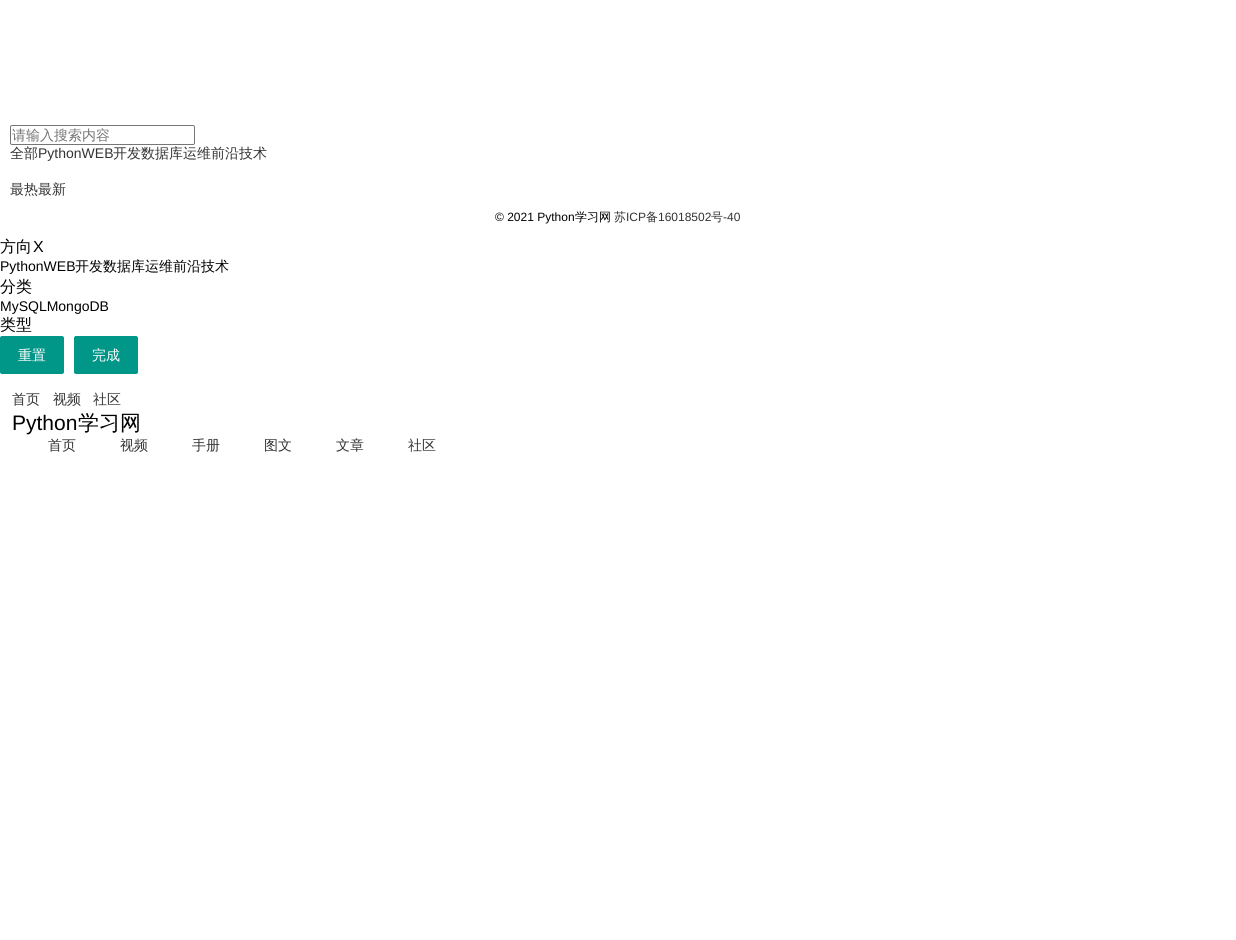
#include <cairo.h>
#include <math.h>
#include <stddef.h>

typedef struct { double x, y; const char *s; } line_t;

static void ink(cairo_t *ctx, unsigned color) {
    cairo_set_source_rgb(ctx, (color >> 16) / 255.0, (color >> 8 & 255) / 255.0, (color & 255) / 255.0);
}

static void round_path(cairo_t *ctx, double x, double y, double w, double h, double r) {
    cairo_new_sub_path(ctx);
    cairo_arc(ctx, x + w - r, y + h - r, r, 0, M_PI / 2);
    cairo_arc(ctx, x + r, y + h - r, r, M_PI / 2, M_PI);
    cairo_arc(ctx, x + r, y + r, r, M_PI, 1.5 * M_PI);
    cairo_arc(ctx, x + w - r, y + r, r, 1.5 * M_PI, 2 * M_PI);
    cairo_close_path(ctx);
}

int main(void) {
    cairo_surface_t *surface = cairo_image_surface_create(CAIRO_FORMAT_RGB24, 1236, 940);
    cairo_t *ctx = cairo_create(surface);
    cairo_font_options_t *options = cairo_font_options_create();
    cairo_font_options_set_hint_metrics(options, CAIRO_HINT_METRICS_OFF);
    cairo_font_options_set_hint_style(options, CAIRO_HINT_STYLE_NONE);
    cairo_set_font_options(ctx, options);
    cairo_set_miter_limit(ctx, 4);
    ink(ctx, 0xFFFFFF);
    cairo_paint(ctx);
    round_path(ctx, 10.5, 125.5, 184, 19, 1.5);
    ink(ctx, 0x767676);
    cairo_set_line_width(ctx, 1);
    cairo_stroke(ctx);
    cairo_select_font_face(ctx, "WenQuanYi Zen Hei Medium", CAIRO_FONT_SLANT_NORMAL, CAIRO_FONT_WEIGHT_NORMAL);
    cairo_set_font_size(ctx, 14);
    ink(ctx, 0x757575);
    cairo_move_to(ctx, 12, 140);
    cairo_show_text(ctx, "请输入搜索内容");
    ink(ctx, 0x333333);
    cairo_move_to(ctx, 10, 158);
    cairo_show_text(ctx, "全部");
    cairo_select_font_face(ctx, "Liberation Sans", CAIRO_FONT_SLANT_NORMAL, CAIRO_FONT_WEIGHT_NORMAL);
    cairo_move_to(ctx, 38, 158);
    cairo_show_text(ctx, "PythonWEB");
    cairo_select_font_face(ctx, "WenQuanYi Zen Hei Medium", CAIRO_FONT_SLANT_NORMAL, CAIRO_FONT_WEIGHT_NORMAL);
    cairo_move_to(ctx, 113, 158);
    cairo_show_text(ctx, "开发数据库运维前沿技术");
    cairo_move_to(ctx, 10, 194);
    cairo_show_text(ctx, "最热最新");
    cairo_select_font_face(ctx, "Liberation Sans", CAIRO_FONT_SLANT_NORMAL, CAIRO_FONT_WEIGHT_NORMAL);
    cairo_set_font_size(ctx, 12);
    ink(ctx, 0x000000);
    cairo_move_to(ctx, 495, 221);
    cairo_show_text(ctx, "© 2021 Python");
    cairo_select_font_face(ctx, "WenQuanYi Zen Hei Medium", CAIRO_FONT_SLANT_NORMAL, CAIRO_FONT_WEIGHT_NORMAL);
    cairo_move_to(ctx, 575, 221);
    cairo_show_text(ctx, "学习网");
    ink(ctx, 0x333333);
    cairo_move_to(ctx, 614, 221);
    cairo_show_text(ctx, "苏");
    cairo_select_font_face(ctx, "Liberation Sans", CAIRO_FONT_SLANT_NORMAL, CAIRO_FONT_WEIGHT_NORMAL);
    cairo_move_to(ctx, 626, 221);
    cairo_show_text(ctx, "ICP");
    cairo_select_font_face(ctx, "WenQuanYi Zen Hei Medium", CAIRO_FONT_SLANT_NORMAL, CAIRO_FONT_WEIGHT_NORMAL);
    cairo_move_to(ctx, 646, 221);
    cairo_show_text(ctx, "备");
    cairo_select_font_face(ctx, "Liberation Sans", CAIRO_FONT_SLANT_NORMAL, CAIRO_FONT_WEIGHT_NORMAL);
    cairo_move_to(ctx, 658, 221);
    cairo_show_text(ctx, "16018502");
    cairo_select_font_face(ctx, "WenQuanYi Zen Hei Medium", CAIRO_FONT_SLANT_NORMAL, CAIRO_FONT_WEIGHT_NORMAL);
    cairo_move_to(ctx, 711, 221);
    cairo_show_text(ctx, "号");
    cairo_select_font_face(ctx, "Liberation Sans", CAIRO_FONT_SLANT_NORMAL, CAIRO_FONT_WEIGHT_NORMAL);
    cairo_move_to(ctx, 723, 221);
    cairo_show_text(ctx, "-40");
    cairo_select_font_face(ctx, "WenQuanYi Zen Hei Medium", CAIRO_FONT_SLANT_NORMAL, CAIRO_FONT_WEIGHT_NORMAL);
    cairo_set_font_size(ctx, 16);
    ink(ctx, 0x000000);
    cairo_move_to(ctx, 0, 252);
    cairo_show_text(ctx, "方向");
    cairo_select_font_face(ctx, "Liberation Sans", CAIRO_FONT_SLANT_NORMAL, CAIRO_FONT_WEIGHT_NORMAL);
    cairo_move_to(ctx, 33, 252);
    cairo_show_text(ctx, "X");
    cairo_set_font_size(ctx, 14);
    cairo_move_to(ctx, 0, 271);
    cairo_show_text(ctx, "PythonWEB");
    cairo_select_font_face(ctx, "WenQuanYi Zen Hei Medium", CAIRO_FONT_SLANT_NORMAL, CAIRO_FONT_WEIGHT_NORMAL);
    cairo_move_to(ctx, 75, 271);
    cairo_show_text(ctx, "开发数据库运维前沿技术");
    cairo_set_font_size(ctx, 16);
    cairo_move_to(ctx, 0, 292);
    cairo_show_text(ctx, "分类");
    cairo_select_font_face(ctx, "Liberation Sans", CAIRO_FONT_SLANT_NORMAL, CAIRO_FONT_WEIGHT_NORMAL);
    cairo_set_font_size(ctx, 14);
    cairo_move_to(ctx, 0, 311);
    cairo_show_text(ctx, "MySQLMongoDB");
    cairo_select_font_face(ctx, "WenQuanYi Zen Hei Medium", CAIRO_FONT_SLANT_NORMAL, CAIRO_FONT_WEIGHT_NORMAL);
    cairo_set_font_size(ctx, 16);
    cairo_move_to(ctx, 0, 330);
    cairo_show_text(ctx, "类型");
    ink(ctx, 0x009688);
    round_path(ctx, 0, 336, 64, 38, 2);
    cairo_fill(ctx);
    cairo_set_font_size(ctx, 14);
    ink(ctx, 0xFFFFFF);
    cairo_move_to(ctx, 18, 360);
    cairo_show_text(ctx, "重置");
    ink(ctx, 0x009688);
    round_path(ctx, 74, 336, 64, 38, 2);
    cairo_fill(ctx);
    ink(ctx, 0xFFFFFF);
    cairo_move_to(ctx, 92, 360);
    cairo_show_text(ctx, "完成");
    ink(ctx, 0x333333);
    {
        static const line_t items[] = {
            {12, 404, "首页"},
            {53, 404, "视频"},
            {93, 404, "社区"},
        };
        for (size_t i = 0; i < sizeof items / sizeof *items; i++) {
            cairo_move_to(ctx, items[i].x, items[i].y);
            cairo_show_text(ctx, items[i].s);
        }
    }
    cairo_select_font_face(ctx, "Liberation Sans", CAIRO_FONT_SLANT_NORMAL, CAIRO_FONT_WEIGHT_NORMAL);
    cairo_set_font_size(ctx, 21);
    ink(ctx, 0x000000);
    cairo_move_to(ctx, 12, 430);
    cairo_show_text(ctx, "Python");
    cairo_select_font_face(ctx, "WenQuanYi Zen Hei Medium", CAIRO_FONT_SLANT_NORMAL, CAIRO_FONT_WEIGHT_NORMAL);
    cairo_move_to(ctx, 78, 430);
    cairo_show_text(ctx, "学习网");
    cairo_set_font_size(ctx, 14);
    ink(ctx, 0x333333);
    {
        static const line_t items[] = {
            {48, 450, "首页"},
            {120, 450, "视频"},
            {192, 450, "手册"},
            {264, 450, "图文"},
            {336, 450, "文章"},
            {408, 450, "社区"},
        };
        for (size_t i = 0; i < sizeof items / sizeof *items; i++) {
            cairo_move_to(ctx, items[i].x, items[i].y);
            cairo_show_text(ctx, items[i].s);
        }
    }
    cairo_surface_write_to_png(surface, "image.png");
    cairo_font_options_destroy(options);
    cairo_destroy(ctx);
    cairo_surface_destroy(surface);
    return 0;
}
